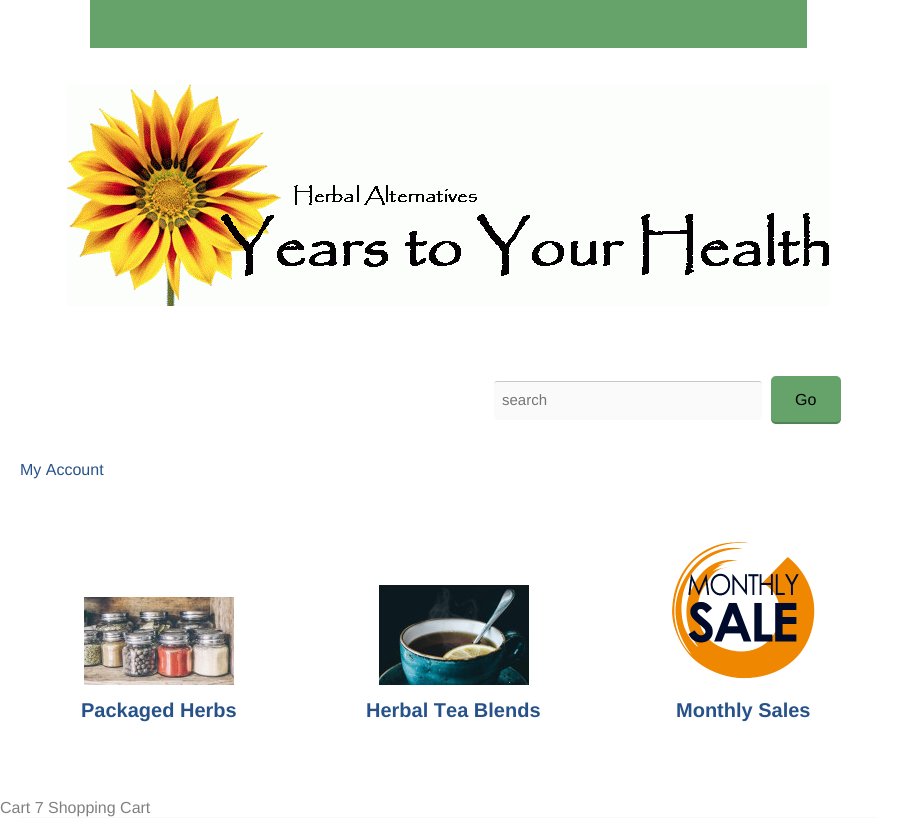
#include <cairo.h>
#include <math.h>
#include <stddef.h>


static void ink(cairo_t *ctx, unsigned color) {
    cairo_set_source_rgb(ctx, (color >> 16) / 255.0, (color >> 8 & 255) / 255.0, (color & 255) / 255.0);
}

static void round_path(cairo_t *ctx, double x, double y, double w, double h, double r) {
    cairo_new_sub_path(ctx);
    cairo_arc(ctx, x + w - r, y + h - r, r, 0, M_PI / 2);
    cairo_arc(ctx, x + r, y + h - r, r, M_PI / 2, M_PI);
    cairo_arc(ctx, x + r, y + r, r, M_PI, 1.5 * M_PI);
    cairo_arc(ctx, x + w - r, y + r, r, 1.5 * M_PI, 2 * M_PI);
    cairo_close_path(ctx);
}

static void paste(cairo_t *ctx, const char *path, double x, double y, double w, double h) {
    cairo_surface_t *image = cairo_image_surface_create_from_png(path);
    cairo_save(ctx);
    cairo_set_source_surface(ctx, image, x, y);
    cairo_rectangle(ctx, x, y, w, h);
    cairo_fill(ctx);
    cairo_restore(ctx);
    cairo_surface_destroy(image);
}

int main(void) {
    cairo_surface_t *surface = cairo_image_surface_create(CAIRO_FORMAT_RGB24, 897, 820);
    cairo_t *ctx = cairo_create(surface);
    cairo_font_options_t *options = cairo_font_options_create();
    cairo_font_options_set_hint_metrics(options, CAIRO_HINT_METRICS_OFF);
    cairo_font_options_set_hint_style(options, CAIRO_HINT_STYLE_NONE);
    cairo_set_font_options(ctx, options);
    cairo_set_miter_limit(ctx, 4);
    ink(ctx, 0xFFFFFF);
    cairo_paint(ctx);
    ink(ctx, 0x65A36A);
    cairo_rectangle(ctx, 90, 0, 717, 48);
    cairo_fill(ctx);
    paste(ctx, "media/1.png", 67, 84, 762, 222);
    ink(ctx, 0xF8F8F8);
    cairo_rectangle(ctx, 20, 817, 857, 1);
    cairo_fill(ctx);
    ink(ctx, 0xF9F9F9);
    cairo_new_path(ctx);
    cairo_move_to(ctx, 494, 416);
    cairo_curve_to(ctx, 494, 418, 495, 420, 497, 420);
    cairo_line_to(ctx, 759, 420);
    cairo_curve_to(ctx, 761, 420, 762, 418, 762, 416);
    cairo_curve_to(ctx, 762, 418, 761, 419, 759, 419);
    cairo_line_to(ctx, 497, 419);
    cairo_curve_to(ctx, 495, 419, 494, 418, 494, 416);
    cairo_close_path(ctx);
    cairo_fill(ctx);
    ink(ctx, 0xFAFAFA);
    round_path(ctx, 494, 381, 268, 38, 3);
    cairo_fill(ctx);
    ink(ctx, 0xC8C8C8);
    cairo_new_path(ctx);
    cairo_move_to(ctx, 497, 382);
    cairo_line_to(ctx, 759, 382);
    cairo_curve_to(ctx, 761, 382, 762, 383, 762, 385);
    cairo_curve_to(ctx, 762, 383, 761, 381, 759, 381);
    cairo_line_to(ctx, 497, 381);
    cairo_curve_to(ctx, 495, 381, 494, 383, 494, 385);
    cairo_curve_to(ctx, 494, 383, 495, 382, 497, 382);
    cairo_close_path(ctx);
    cairo_fill(ctx);
    cairo_select_font_face(ctx, "Liberation Sans", CAIRO_FONT_SLANT_NORMAL, CAIRO_FONT_WEIGHT_NORMAL);
    cairo_set_font_size(ctx, 15);
    ink(ctx, 0x757575);
    cairo_move_to(ctx, 502, 405);
    cairo_show_text(ctx, "search");
    ink(ctx, 0x65A36A);
    round_path(ctx, 771, 376, 70, 48, 5);
    cairo_fill(ctx);
    cairo_set_source_rgba(ctx, 0, 0, 0, 0.2);
    cairo_new_path(ctx);
    cairo_move_to(ctx, 771, 417);
    cairo_curve_to(ctx, 771, 426, 778, 424, 786, 424);
    cairo_line_to(ctx, 826, 424);
    cairo_curve_to(ctx, 834, 424, 841, 426, 841, 417);
    cairo_curve_to(ctx, 841, 420, 839, 422, 836, 422);
    cairo_line_to(ctx, 776, 422);
    cairo_curve_to(ctx, 773, 422, 771, 420, 771, 417);
    cairo_close_path(ctx);
    cairo_fill(ctx);
    cairo_set_font_size(ctx, 16);
    ink(ctx, 0x000000);
    cairo_move_to(ctx, 795, 405);
    cairo_show_text(ctx, "Go");
    ink(ctx, 0x275289);
    cairo_move_to(ctx, 20, 475);
    cairo_show_text(ctx, "My Account");
    paste(ctx, "media/2.png", 84, 597, 150, 88);
    cairo_select_font_face(ctx, "Liberation Sans", CAIRO_FONT_SLANT_NORMAL, CAIRO_FONT_WEIGHT_BOLD);
    cairo_set_font_size(ctx, 20);
    cairo_move_to(ctx, 81, 717);
    cairo_show_text(ctx, "Packaged Herbs");
    paste(ctx, "media/3.png", 379, 585, 150, 100);
    cairo_move_to(ctx, 366, 717);
    cairo_show_text(ctx, "Herbal Tea Blends");
    paste(ctx, "media/4.png", 672, 542, 143, 137);
    cairo_move_to(ctx, 676, 717);
    cairo_show_text(ctx, "Monthly Sales");
    cairo_select_font_face(ctx, "Liberation Sans", CAIRO_FONT_SLANT_NORMAL, CAIRO_FONT_WEIGHT_NORMAL);
    cairo_set_font_size(ctx, 16);
    ink(ctx, 0x808080);
    cairo_move_to(ctx, 0, 813);
    cairo_show_text(ctx, "Cart 7 Shopping Cart");
    cairo_surface_write_to_png(surface, "image.png");
    cairo_font_options_destroy(options);
    cairo_destroy(ctx);
    cairo_surface_destroy(surface);
    return 0;
}
